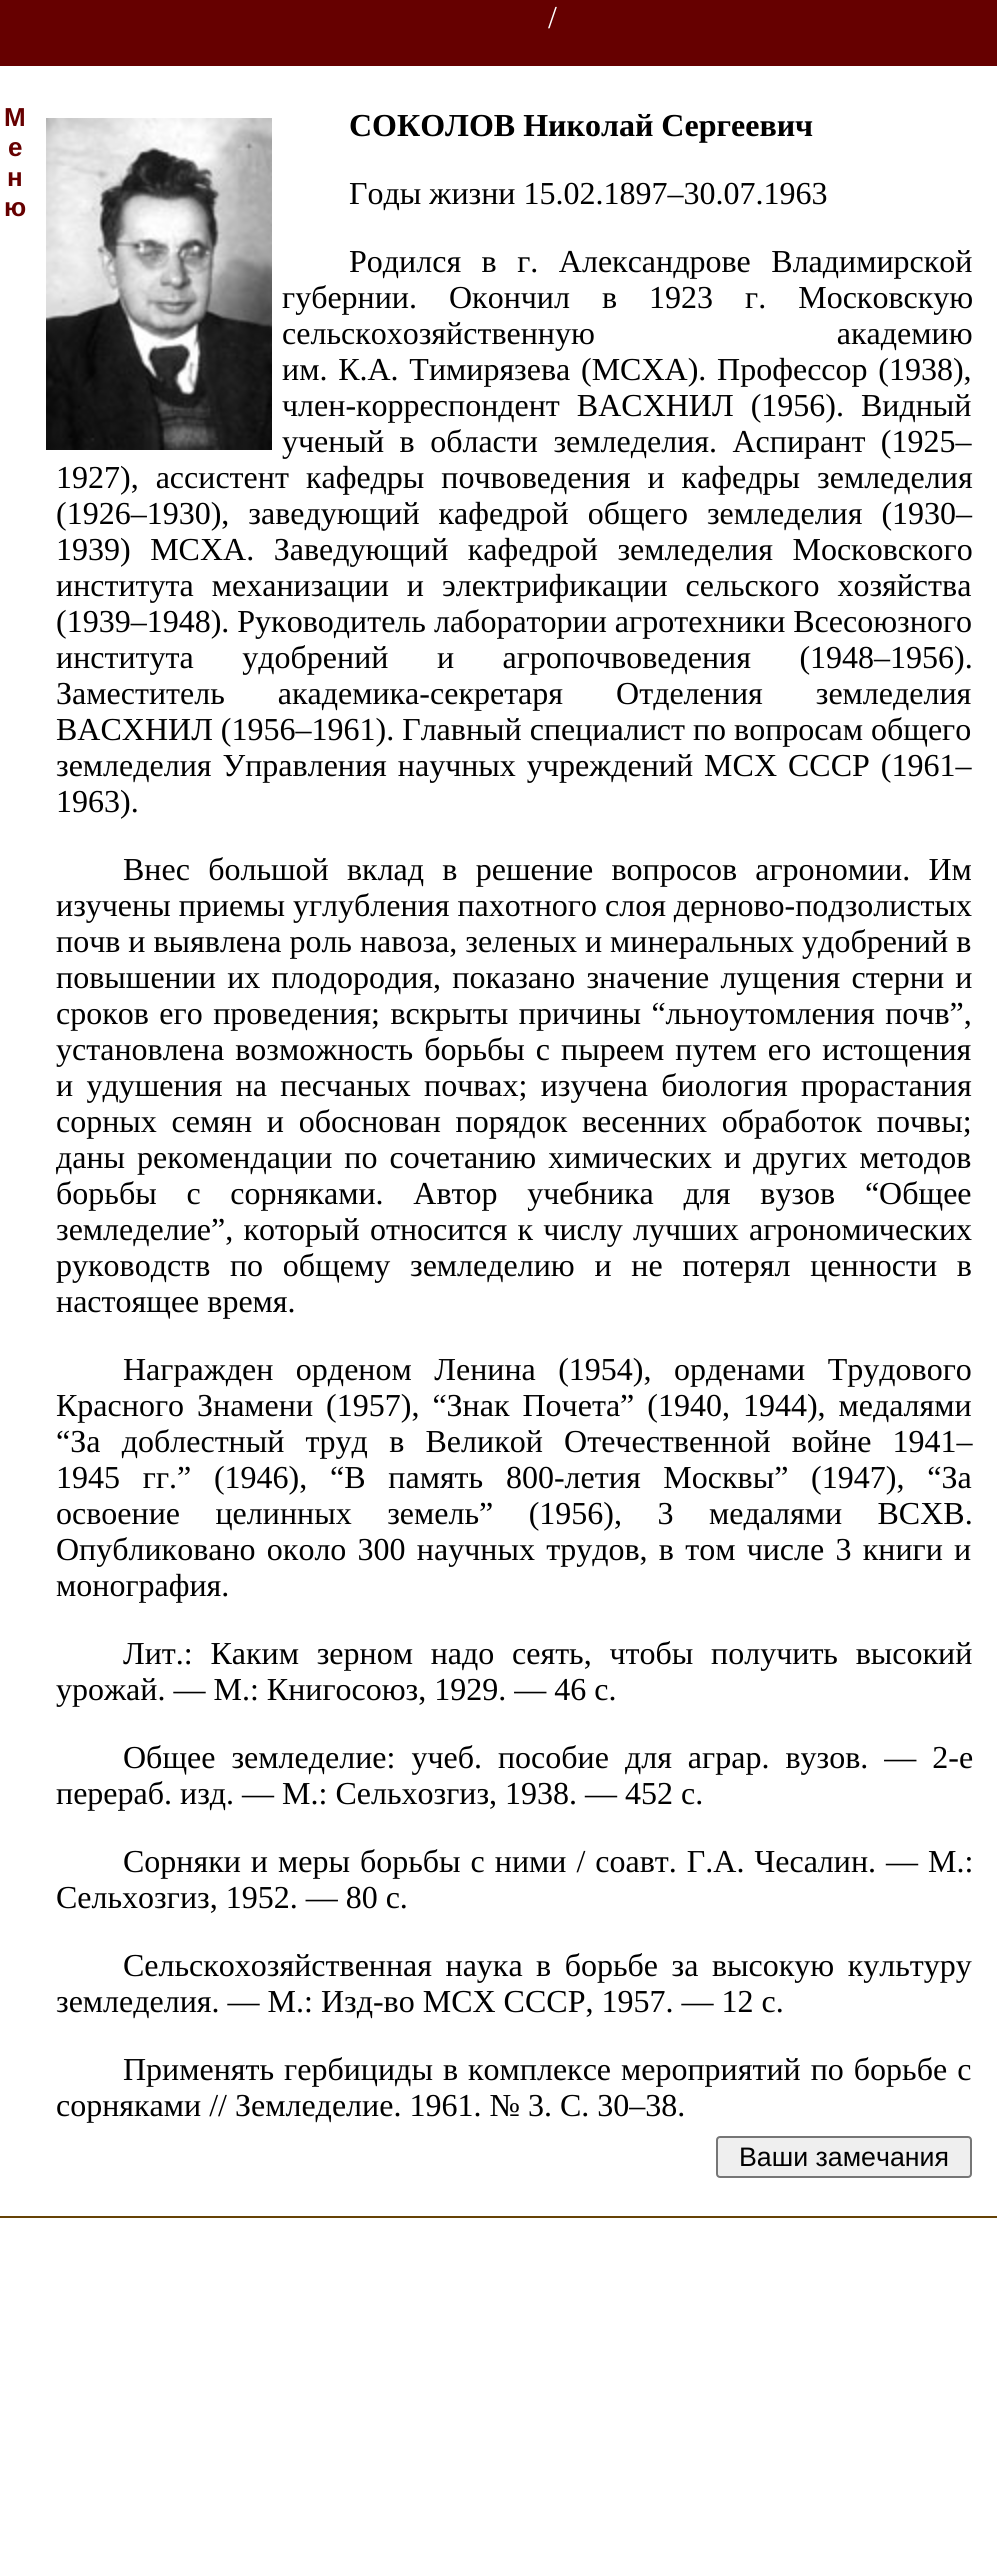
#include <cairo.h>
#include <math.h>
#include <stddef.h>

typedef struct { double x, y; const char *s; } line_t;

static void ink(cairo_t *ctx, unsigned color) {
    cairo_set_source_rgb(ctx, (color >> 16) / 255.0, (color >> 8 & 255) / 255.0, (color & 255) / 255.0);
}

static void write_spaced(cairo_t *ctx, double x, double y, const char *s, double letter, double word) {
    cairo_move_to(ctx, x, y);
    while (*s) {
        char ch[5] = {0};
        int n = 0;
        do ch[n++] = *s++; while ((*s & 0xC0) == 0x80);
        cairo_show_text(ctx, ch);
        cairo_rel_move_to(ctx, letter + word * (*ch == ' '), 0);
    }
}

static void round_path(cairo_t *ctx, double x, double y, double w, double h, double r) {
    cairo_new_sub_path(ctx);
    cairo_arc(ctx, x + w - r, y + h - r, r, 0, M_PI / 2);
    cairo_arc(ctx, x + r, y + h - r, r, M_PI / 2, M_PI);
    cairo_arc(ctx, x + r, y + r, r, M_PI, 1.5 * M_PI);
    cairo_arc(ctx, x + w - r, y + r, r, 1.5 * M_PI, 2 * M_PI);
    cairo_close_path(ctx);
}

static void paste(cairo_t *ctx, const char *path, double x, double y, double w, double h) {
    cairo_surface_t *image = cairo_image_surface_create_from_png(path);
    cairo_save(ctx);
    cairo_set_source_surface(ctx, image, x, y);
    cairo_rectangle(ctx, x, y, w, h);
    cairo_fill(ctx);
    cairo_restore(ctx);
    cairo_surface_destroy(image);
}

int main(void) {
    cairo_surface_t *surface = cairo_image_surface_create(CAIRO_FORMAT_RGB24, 997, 2551);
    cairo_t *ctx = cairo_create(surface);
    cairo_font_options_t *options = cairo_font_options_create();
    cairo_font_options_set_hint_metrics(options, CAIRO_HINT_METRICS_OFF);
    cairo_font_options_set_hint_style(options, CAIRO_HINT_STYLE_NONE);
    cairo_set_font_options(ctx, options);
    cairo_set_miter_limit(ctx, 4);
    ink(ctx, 0xFFFFFF);
    cairo_paint(ctx);
    ink(ctx, 0x660000);
    cairo_rectangle(ctx, 0, 0, 997, 66);
    cairo_fill(ctx);
    cairo_select_font_face(ctx, "Liberation Serif", CAIRO_FONT_SLANT_NORMAL, CAIRO_FONT_WEIGHT_NORMAL);
    cairo_set_font_size(ctx, 32);
    ink(ctx, 0xFFFFFF);
    cairo_move_to(ctx, 548, 28);
    cairo_show_text(ctx, "/");
    cairo_select_font_face(ctx, "Liberation Sans", CAIRO_FONT_SLANT_NORMAL, CAIRO_FONT_WEIGHT_BOLD);
    cairo_set_font_size(ctx, 26);
    ink(ctx, 0x660000);
    {
        static const line_t items[] = {
            {4, 126, "М"},
            {8, 156, "е"},
            {7, 186, "н"},
            {4, 216, "ю"},
        };
        for (size_t i = 0; i < sizeof items / sizeof *items; i++) {
            cairo_move_to(ctx, items[i].x, items[i].y);
            cairo_show_text(ctx, items[i].s);
        }
    }
    paste(ctx, "media/1.png", 46, 118, 226, 332);
    cairo_select_font_face(ctx, "Liberation Serif", CAIRO_FONT_SLANT_NORMAL, CAIRO_FONT_WEIGHT_BOLD);
    cairo_set_font_size(ctx, 32);
    ink(ctx, 0x000000);
    cairo_move_to(ctx, 349, 136);
    cairo_show_text(ctx, "СОКОЛОВ Николай Сергеевич");
    cairo_select_font_face(ctx, "Liberation Serif", CAIRO_FONT_SLANT_NORMAL, CAIRO_FONT_WEIGHT_NORMAL);
    cairo_move_to(ctx, 349, 204);
    cairo_show_text(ctx, "Годы жизни 15.02.1897–30.07.1963");
    write_spaced(ctx, 349, 272, "Родился в г. Александрове Владимирской", 0, 12.5);
    write_spaced(ctx, 282, 308, "губернии. Окончил в 1923 г. Московскую", 0, 24);
    write_spaced(ctx, 282, 344, "сельскохозяйственную академию", 0, 234);
    write_spaced(ctx, 282, 380, "им. К.А. Тимирязева (МСХА). Профессор (1938),", 0, 2.75);
    write_spaced(ctx, 282, 416, "член-корреспондент ВАСХНИЛ (1956). Видный", 0, 9);
    write_spaced(ctx, 282, 452, "ученый в области земледелия. Аспирант (1925–", 0, 7.5);
    write_spaced(ctx, 56, 488, "1927), ассистент кафедры почвоведения и кафедры земледелия", 0, 9);
    write_spaced(ctx, 56, 524, "(1926–1930), заведующий кафедрой общего земледелия (1930–", 0, 11);
    write_spaced(ctx, 56, 560, "1939) МСХА. Заведующий кафедрой земледелия Московского", 0, 11.5);
    write_spaced(ctx, 56, 596, "института механизации и электрификации сельского хозяйства", 0, 10);
    cairo_move_to(ctx, 56, 632);
    cairo_show_text(ctx, "(1939–1948). Руководитель лаборатории агротехники Всесоюзного");
    write_spaced(ctx, 56, 668, "института удобрений и агропочвоведения (1948–1956).", 0, 40.5);
    write_spaced(ctx, 56, 704, "Заместитель академика-секретаря Отделения земледелия", 0, 45);
    cairo_move_to(ctx, 56, 740);
    cairo_show_text(ctx, "ВАСХНИЛ (1956–1961). Главный специалист по вопросам общего");
    write_spaced(ctx, 56, 776, "земледелия Управления научных учреждений МСХ СССР (1961–", 0, 3);
    cairo_move_to(ctx, 56, 812);
    cairo_show_text(ctx, "1963).");
    write_spaced(ctx, 123, 880, "Внес большой вклад в решение вопросов агрономии. Им", 0, 10.25);
    cairo_move_to(ctx, 56, 916);
    cairo_show_text(ctx, "изучены приемы углубления пахотного слоя дерново-подзолистых");
    cairo_move_to(ctx, 56, 952);
    cairo_show_text(ctx, "почв и выявлена роль навоза, зеленых и минеральных удобрений в");
    write_spaced(ctx, 56, 988, "повышении их плодородия, показано значение лущения стерни и", 0, 3.25);
    write_spaced(ctx, 56, 1024, "сроков его проведения; вскрыты причины “льноутомления почв”,", 0, 2.5);
    write_spaced(ctx, 56, 1060, "установлена возможность борьбы с пыреем путем его истощения", 0, 3);
    write_spaced(ctx, 56, 1096, "и удушения на песчаных почвах; изучена биология прорастания", 0, 5.25);
    write_spaced(ctx, 56, 1132, "сорных семян и обоснован порядок весенних обработок почвы;", 0, 6.75);
    write_spaced(ctx, 56, 1168, "даны рекомендации по сочетанию химических и других методов", 0, 4);
    write_spaced(ctx, 56, 1204, "борьбы с сорняками. Автор учебника для вузов “Общее", 0, 21.75);
    write_spaced(ctx, 56, 1240, "земледелие”, который относится к числу лучших агрономических", 0, 2.25);
    write_spaced(ctx, 56, 1276, "руководств по общему земледелию и не потерял ценности в", 0, 11.75);
    cairo_move_to(ctx, 56, 1312);
    cairo_show_text(ctx, "настоящее время.");
    write_spaced(ctx, 123, 1380, "Награжден орденом Ленина (1954), орденами Трудового", 0, 14.5);
    write_spaced(ctx, 56, 1416, "Красного Знамени (1957), “Знак Почета” (1940, 1944), медалями", 0, 5);
    write_spaced(ctx, 56, 1452, "“За доблестный труд в Великой Отечественной войне 1941–", 0, 13.25);
    write_spaced(ctx, 56, 1488, "1945 гг.” (1946), “В память 800-летия Москвы” (1947), “За", 0, 14.75);
    write_spaced(ctx, 56, 1524, "освоение целинных земель” (1956), 3 медалями ВСХВ.", 0, 27.5);
    write_spaced(ctx, 56, 1560, "Опубликовано около 300 научных трудов, в том числе 3 книги и", 0, 3.25);
    cairo_move_to(ctx, 56, 1596);
    cairo_show_text(ctx, "монография.");
    write_spaced(ctx, 123, 1664, "Лит.: Каким зерном надо сеять, чтобы получить высокий", 0, 9.75);
    cairo_move_to(ctx, 56, 1700);
    cairo_show_text(ctx, "урожай. — М.: Книгосоюз, 1929. — 46 с.");
    write_spaced(ctx, 123, 1768, "Общее земледелие: учеб. пособие для аграр. вузов. — 2-е", 0, 8);
    cairo_move_to(ctx, 56, 1804);
    cairo_show_text(ctx, "перераб. изд. — М.: Сельхозгиз, 1938. — 452 с.");
    write_spaced(ctx, 123, 1872, "Сорняки и меры борьбы с ними / соавт. Г.А. Чесалин. — М.:", 0, 2);
    cairo_move_to(ctx, 56, 1908);
    cairo_show_text(ctx, "Сельхозгиз, 1952. — 80 с.");
    write_spaced(ctx, 123, 1976, "Сельскохозяйственная наука в борьбе за высокую культуру", 0, 5.5);
    cairo_move_to(ctx, 56, 2012);
    cairo_show_text(ctx, "земледелия. — М.: Изд-во МСХ СССР, 1957. — 12 с.");
    write_spaced(ctx, 123, 2080, "Применять гербициды в комплексе мероприятий по борьбе с", 0, 2);
    cairo_move_to(ctx, 56, 2116);
    cairo_show_text(ctx, "сорняками // Земледелие. 1961. № 3. С. 30–38.");
    ink(ctx, 0xEFEFEF);
    round_path(ctx, 717, 2137, 254, 40, 3);
    cairo_fill_preserve(ctx);
    ink(ctx, 0x767676);
    cairo_stroke(ctx);
    cairo_select_font_face(ctx, "Liberation Sans", CAIRO_FONT_SLANT_NORMAL, CAIRO_FONT_WEIGHT_NORMAL);
    cairo_set_font_size(ctx, 26.75);
    ink(ctx, 0x000000);
    cairo_move_to(ctx, 739, 2166);
    cairo_show_text(ctx, "Ваши замечания");
    ink(ctx, 0x654205);
    cairo_rectangle(ctx, 0, 2216, 997, 2);
    cairo_fill(ctx);
    cairo_surface_write_to_png(surface, "image.png");
    cairo_font_options_destroy(options);
    cairo_destroy(ctx);
    cairo_surface_destroy(surface);
    return 0;
}
